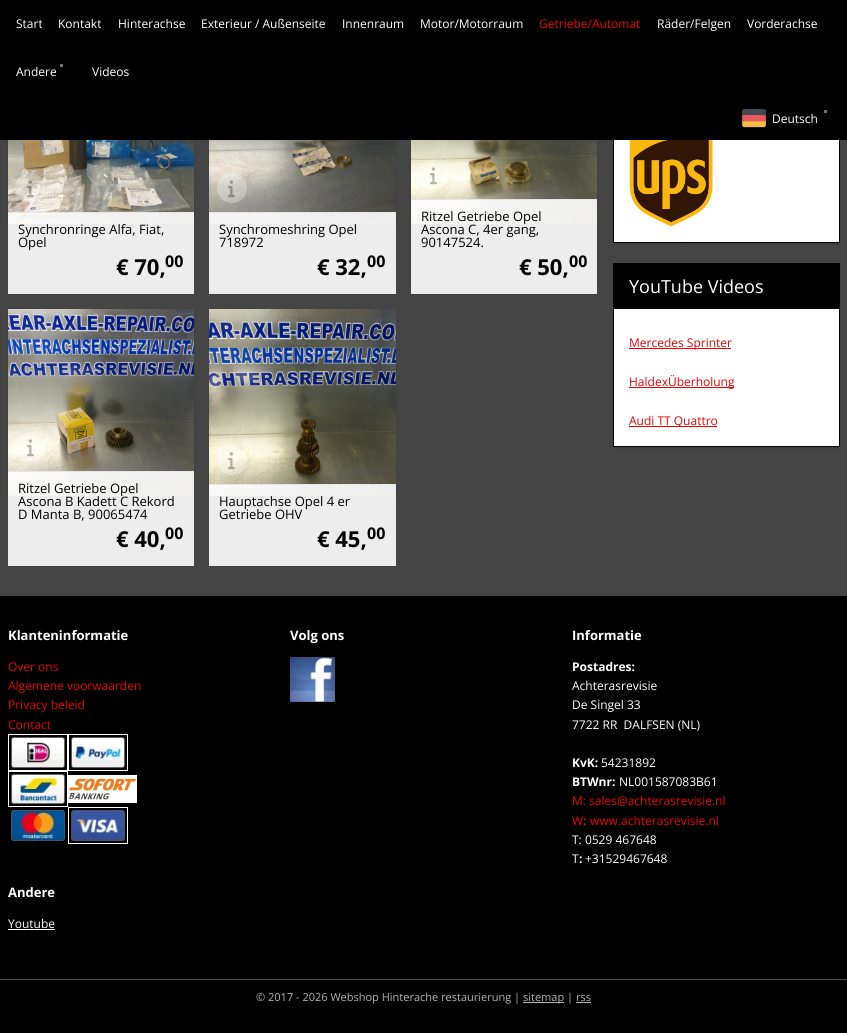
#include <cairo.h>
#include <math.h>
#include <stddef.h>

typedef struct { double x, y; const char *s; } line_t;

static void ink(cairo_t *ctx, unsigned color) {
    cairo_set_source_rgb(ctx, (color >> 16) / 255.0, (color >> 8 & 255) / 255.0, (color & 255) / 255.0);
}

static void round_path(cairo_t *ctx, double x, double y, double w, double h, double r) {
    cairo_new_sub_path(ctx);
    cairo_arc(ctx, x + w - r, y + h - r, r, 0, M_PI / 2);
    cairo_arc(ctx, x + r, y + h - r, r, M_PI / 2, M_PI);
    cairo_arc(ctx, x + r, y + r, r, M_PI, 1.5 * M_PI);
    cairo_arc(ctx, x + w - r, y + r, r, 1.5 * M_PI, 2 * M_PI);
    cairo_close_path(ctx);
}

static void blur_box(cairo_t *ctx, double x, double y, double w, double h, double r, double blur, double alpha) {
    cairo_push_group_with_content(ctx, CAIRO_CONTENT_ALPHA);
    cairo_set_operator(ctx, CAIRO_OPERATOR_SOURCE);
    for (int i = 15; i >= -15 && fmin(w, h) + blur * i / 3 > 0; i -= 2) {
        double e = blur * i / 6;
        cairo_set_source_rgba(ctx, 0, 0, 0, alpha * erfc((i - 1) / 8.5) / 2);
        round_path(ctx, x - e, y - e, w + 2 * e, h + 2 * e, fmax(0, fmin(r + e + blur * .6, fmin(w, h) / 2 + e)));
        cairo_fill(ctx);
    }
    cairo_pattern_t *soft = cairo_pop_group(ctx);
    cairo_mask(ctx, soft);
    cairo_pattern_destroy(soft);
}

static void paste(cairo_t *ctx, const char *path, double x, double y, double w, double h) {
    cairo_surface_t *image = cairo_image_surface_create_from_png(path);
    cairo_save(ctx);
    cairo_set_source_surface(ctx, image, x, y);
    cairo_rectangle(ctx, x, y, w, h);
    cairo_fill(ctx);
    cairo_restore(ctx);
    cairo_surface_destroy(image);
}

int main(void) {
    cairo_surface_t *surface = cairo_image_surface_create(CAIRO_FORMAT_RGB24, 847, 1033);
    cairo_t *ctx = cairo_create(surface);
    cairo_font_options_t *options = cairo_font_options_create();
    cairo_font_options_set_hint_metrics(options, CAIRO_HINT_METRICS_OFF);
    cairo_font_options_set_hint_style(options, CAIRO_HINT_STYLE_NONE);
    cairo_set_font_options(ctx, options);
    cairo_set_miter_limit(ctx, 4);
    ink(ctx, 0x000000);
    cairo_paint(ctx);
    ink(ctx, 0x454545);
    cairo_rectangle(ctx, 0, 140, 847, 456);
    cairo_fill(ctx);
    cairo_select_font_face(ctx, "Open Sans", CAIRO_FONT_SLANT_NORMAL, CAIRO_FONT_WEIGHT_NORMAL);
    cairo_set_font_size(ctx, 12);
    ink(ctx, 0xFFFFFF);
    {
        static const line_t items[] = {
            {16, 28, "Start"},
            {58, 28, "Kontakt"},
            {118, 28, "Hinterachse"},
            {201, 28, "Exterieur / Außenseite"},
            {342, 28, "Innenraum"},
            {420, 28, "Motor/Motorraum"},
        };
        for (size_t i = 0; i < sizeof items / sizeof *items; i++) {
            cairo_move_to(ctx, items[i].x, items[i].y);
            cairo_show_text(ctx, items[i].s);
        }
    }
    ink(ctx, 0xE50505);
    cairo_move_to(ctx, 539, 28);
    cairo_show_text(ctx, "Getriebe/Automat");
    ink(ctx, 0xFFFFFF);
    cairo_move_to(ctx, 657, 28);
    cairo_show_text(ctx, "Räder/Felgen");
    cairo_move_to(ctx, 747, 28);
    cairo_show_text(ctx, "Vorderachse");
    ink(ctx, 0x000000);
    blur_box(ctx, 8, 39, 186, 186, 0, 1, 0.15);
    ink(ctx, 0x737373);
    cairo_rectangle(ctx, 60, 64, 3, 3);
    cairo_fill(ctx);
    ink(ctx, 0xFFFFFF);
    cairo_move_to(ctx, 16, 76);
    cairo_show_text(ctx, "Andere");
    cairo_move_to(ctx, 92, 76);
    cairo_show_text(ctx, "Videos");
    ink(ctx, 0x000000);
    blur_box(ctx, 613, 54, 227, 190, 0, 1, 0.15);
    ink(ctx, 0xFFFFFF);
    cairo_rectangle(ctx, 614, 140, 225, 102);
    cairo_fill(ctx);
    cairo_rectangle(ctx, 613.5, 53.5, 226, 189);
    ink(ctx, 0x000000);
    cairo_set_line_width(ctx, 1);
    cairo_stroke(ctx);
    paste(ctx, "media/1.png", 741, 109, 25, 19);
    ink(ctx, 0x737373);
    cairo_rectangle(ctx, 824, 110, 3, 3);
    cairo_fill(ctx);
    ink(ctx, 0xFFFFFF);
    cairo_move_to(ctx, 772, 123);
    cairo_show_text(ctx, "Deutsch");
    paste(ctx, "media/2.png", 8, 140, 186, 84);
    cairo_set_source_rgba(ctx, 1, 1, 1, 0.9);
    cairo_rectangle(ctx, 8, 213, 186, 81);
    cairo_fill(ctx);
    ink(ctx, 0xE6E6E6);
    cairo_rectangle(ctx, 8, 212, 186, 1);
    cairo_fill(ctx);
    cairo_set_source_rgba(ctx, 1, 1, 1, 0.3);
    cairo_arc(ctx, 30, 188, 15, 0, 2 * M_PI);
    cairo_fill(ctx);
    paste(ctx, "media/3.png", 27, 180, 7, 18);
    cairo_set_font_size(ctx, 13);
    ink(ctx, 0x000000);
    cairo_move_to(ctx, 18, 234);
    cairo_show_text(ctx, "Synchronringe Alfa, Fiat,");
    cairo_move_to(ctx, 18, 247);
    cairo_show_text(ctx, "Opel");
    cairo_select_font_face(ctx, "Open Sans", CAIRO_FONT_SLANT_NORMAL, CAIRO_FONT_WEIGHT_BOLD);
    cairo_set_font_size(ctx, 22);
    cairo_move_to(ctx, 116, 275);
    cairo_show_text(ctx, "€ 70,");
    cairo_set_font_size(ctx, 16);
    cairo_move_to(ctx, 165, 267);
    cairo_show_text(ctx, "00");
    ink(ctx, 0x000000);
    blur_box(ctx, 209, 39, 187, 186, 0, 1, 0.15);
    paste(ctx, "media/4.png", 209, 140, 187, 84);
    cairo_set_source_rgba(ctx, 1, 1, 1, 0.9);
    cairo_rectangle(ctx, 209, 213, 187, 81);
    cairo_fill(ctx);
    ink(ctx, 0xE6E6E6);
    cairo_rectangle(ctx, 209, 212, 187, 1);
    cairo_fill(ctx);
    cairo_set_source_rgba(ctx, 1, 1, 1, 0.3);
    cairo_arc(ctx, 232, 188, 15, 0, 2 * M_PI);
    cairo_fill(ctx);
    paste(ctx, "media/5.png", 228, 180, 7, 18);
    cairo_select_font_face(ctx, "Open Sans", CAIRO_FONT_SLANT_NORMAL, CAIRO_FONT_WEIGHT_NORMAL);
    cairo_set_font_size(ctx, 13);
    ink(ctx, 0x000000);
    cairo_move_to(ctx, 219, 234);
    cairo_show_text(ctx, "Synchromeshring Opel");
    cairo_move_to(ctx, 219, 247);
    cairo_show_text(ctx, "718972");
    cairo_select_font_face(ctx, "Open Sans", CAIRO_FONT_SLANT_NORMAL, CAIRO_FONT_WEIGHT_BOLD);
    cairo_set_font_size(ctx, 22);
    cairo_move_to(ctx, 317, 275);
    cairo_show_text(ctx, "€ 32,");
    cairo_set_font_size(ctx, 16);
    cairo_move_to(ctx, 367, 267);
    cairo_show_text(ctx, "00");
    ink(ctx, 0x000000);
    blur_box(ctx, 411, 39, 186, 186, 0, 1, 0.15);
    paste(ctx, "media/6.png", 411, 140, 186, 84);
    cairo_set_source_rgba(ctx, 1, 1, 1, 0.9);
    cairo_rectangle(ctx, 411, 200, 186, 94);
    cairo_fill(ctx);
    ink(ctx, 0xE6E6E6);
    cairo_rectangle(ctx, 411, 199, 186, 1);
    cairo_fill(ctx);
    cairo_set_source_rgba(ctx, 1, 1, 1, 0.3);
    cairo_arc(ctx, 433, 175, 15, 0, 2 * M_PI);
    cairo_fill(ctx);
    paste(ctx, "media/7.png", 430, 167, 7, 18);
    cairo_select_font_face(ctx, "Open Sans", CAIRO_FONT_SLANT_NORMAL, CAIRO_FONT_WEIGHT_NORMAL);
    cairo_set_font_size(ctx, 13);
    ink(ctx, 0x000000);
    {
        static const line_t items[] = {
            {421, 221, "Ritzel Getriebe Opel"},
            {421, 234, "Ascona C, 4er gang,"},
            {421, 247, "90147524."},
        };
        for (size_t i = 0; i < sizeof items / sizeof *items; i++) {
            cairo_move_to(ctx, items[i].x, items[i].y);
            cairo_show_text(ctx, items[i].s);
        }
    }
    cairo_select_font_face(ctx, "Open Sans", CAIRO_FONT_SLANT_NORMAL, CAIRO_FONT_WEIGHT_BOLD);
    cairo_set_font_size(ctx, 22);
    cairo_move_to(ctx, 519, 275);
    cairo_show_text(ctx, "€ 50,");
    cairo_set_font_size(ctx, 16);
    cairo_move_to(ctx, 569, 267);
    cairo_show_text(ctx, "00");
    ink(ctx, 0x000000);
    blur_box(ctx, 8, 310, 186, 187, 0, 1, 0.15);
    paste(ctx, "media/8.png", 8, 309, 186, 187);
    cairo_set_source_rgba(ctx, 1, 1, 1, 0.9);
    cairo_rectangle(ctx, 8, 472, 186, 94);
    cairo_fill(ctx);
    ink(ctx, 0xE6E6E6);
    cairo_rectangle(ctx, 8, 471, 186, 1);
    cairo_fill(ctx);
    cairo_set_source_rgba(ctx, 1, 1, 1, 0.3);
    cairo_arc(ctx, 30, 447, 15, 0, 2 * M_PI);
    cairo_fill(ctx);
    paste(ctx, "media/9.png", 27, 439, 7, 18);
    cairo_select_font_face(ctx, "Open Sans", CAIRO_FONT_SLANT_NORMAL, CAIRO_FONT_WEIGHT_NORMAL);
    cairo_set_font_size(ctx, 13);
    ink(ctx, 0x000000);
    {
        static const line_t items[] = {
            {18, 493, "Ritzel Getriebe Opel"},
            {18, 506, "Ascona B Kadett C Rekord"},
            {18, 519, "D Manta B, 90065474"},
        };
        for (size_t i = 0; i < sizeof items / sizeof *items; i++) {
            cairo_move_to(ctx, items[i].x, items[i].y);
            cairo_show_text(ctx, items[i].s);
        }
    }
    cairo_select_font_face(ctx, "Open Sans", CAIRO_FONT_SLANT_NORMAL, CAIRO_FONT_WEIGHT_BOLD);
    cairo_set_font_size(ctx, 22);
    cairo_move_to(ctx, 116, 547);
    cairo_show_text(ctx, "€ 40,");
    cairo_set_font_size(ctx, 16);
    cairo_move_to(ctx, 165, 539);
    cairo_show_text(ctx, "00");
    ink(ctx, 0x000000);
    blur_box(ctx, 209, 310, 187, 187, 0, 1, 0.15);
    paste(ctx, "media/10.png", 209, 309, 187, 187);
    cairo_set_source_rgba(ctx, 1, 1, 1, 0.9);
    cairo_rectangle(ctx, 209, 485, 187, 81);
    cairo_fill(ctx);
    ink(ctx, 0xE6E6E6);
    cairo_rectangle(ctx, 209, 484, 187, 1);
    cairo_fill(ctx);
    cairo_set_source_rgba(ctx, 1, 1, 1, 0.3);
    cairo_arc(ctx, 232, 460, 15, 0, 2 * M_PI);
    cairo_fill(ctx);
    paste(ctx, "media/11.png", 228, 452, 7, 18);
    cairo_select_font_face(ctx, "Open Sans", CAIRO_FONT_SLANT_NORMAL, CAIRO_FONT_WEIGHT_NORMAL);
    cairo_set_font_size(ctx, 13);
    ink(ctx, 0x000000);
    cairo_move_to(ctx, 219, 506);
    cairo_show_text(ctx, "Hauptachse Opel 4 er");
    cairo_move_to(ctx, 219, 519);
    cairo_show_text(ctx, "Getriebe OHV");
    cairo_select_font_face(ctx, "Open Sans", CAIRO_FONT_SLANT_NORMAL, CAIRO_FONT_WEIGHT_BOLD);
    cairo_set_font_size(ctx, 22);
    cairo_move_to(ctx, 317, 547);
    cairo_show_text(ctx, "€ 45,");
    cairo_set_font_size(ctx, 16);
    cairo_move_to(ctx, 367, 539);
    cairo_show_text(ctx, "00");
    paste(ctx, "media/12.png", 629, 140, 84, 87);
    ink(ctx, 0x000000);
    blur_box(ctx, 613, 264, 227, 184, 0, 1, 0.15);
    ink(ctx, 0xFFFFFF);
    cairo_rectangle(ctx, 614, 309, 225, 137);
    cairo_fill(ctx);
    cairo_rectangle(ctx, 613.5, 263.5, 226, 183);
    ink(ctx, 0x000000);
    cairo_stroke(ctx);
    cairo_rectangle(ctx, 614, 264, 225, 45);
    cairo_fill(ctx);
    cairo_select_font_face(ctx, "Open Sans", CAIRO_FONT_SLANT_NORMAL, CAIRO_FONT_WEIGHT_NORMAL);
    cairo_set_font_size(ctx, 18);
    ink(ctx, 0xFFFFFF);
    cairo_move_to(ctx, 629, 293);
    cairo_show_text(ctx, "YouTube Videos");
    ink(ctx, 0xE50505);
    cairo_rectangle(ctx, 629, 348, 102, 1);
    cairo_fill(ctx);
    cairo_set_font_size(ctx, 12);
    cairo_move_to(ctx, 629, 347);
    cairo_show_text(ctx, "Mercedes Sprinter");
    cairo_rectangle(ctx, 629, 387, 105, 1);
    cairo_fill(ctx);
    cairo_move_to(ctx, 629, 386);
    cairo_show_text(ctx, "HaldexÜberholung");
    cairo_rectangle(ctx, 629, 426, 88, 1);
    cairo_fill(ctx);
    cairo_move_to(ctx, 629, 425);
    cairo_show_text(ctx, "Audi TT Quattro");
    cairo_select_font_face(ctx, "Open Sans", CAIRO_FONT_SLANT_NORMAL, CAIRO_FONT_WEIGHT_BOLD);
    cairo_set_font_size(ctx, 13);
    ink(ctx, 0xFFFFFF);
    cairo_move_to(ctx, 8, 640);
    cairo_show_text(ctx, "Klanteninformatie");
    cairo_select_font_face(ctx, "Open Sans", CAIRO_FONT_SLANT_NORMAL, CAIRO_FONT_WEIGHT_NORMAL);
    cairo_set_font_size(ctx, 12);
    ink(ctx, 0xE50505);
    {
        static const line_t items[] = {
            {8, 671, "Over ons"},
            {8, 690, "Algemene voorwaarden"},
            {8, 709, "Privacy beleid"},
            {8, 729, "Contact"},
        };
        for (size_t i = 0; i < sizeof items / sizeof *items; i++) {
            cairo_move_to(ctx, items[i].x, items[i].y);
            cairo_show_text(ctx, items[i].s);
        }
    }
    cairo_rectangle(ctx, 8.5, 734.5, 59, 36);
    ink(ctx, 0xFFFFFF);
    cairo_stroke(ctx);
    paste(ctx, "media/13.png", 11, 737, 55, 32);
    cairo_rectangle(ctx, 68.5, 734.5, 59, 36);
    cairo_stroke(ctx);
    paste(ctx, "media/14.png", 71, 737, 55, 32);
    cairo_rectangle(ctx, 8.5, 771.5, 59, 35);
    cairo_stroke(ctx);
    paste(ctx, "media/15.png", 11, 773, 55, 32);
    cairo_rectangle(ctx, 68.5, 775.5, 68, 27);
    cairo_stroke(ctx);
    paste(ctx, "media/16.png", 69, 776, 67, 26);
    paste(ctx, "media/17.png", 11, 810, 55, 32);
    cairo_rectangle(ctx, 68.5, 807.5, 59, 36);
    cairo_stroke(ctx);
    paste(ctx, "media/18.png", 71, 810, 55, 32);
    cairo_select_font_face(ctx, "Open Sans", CAIRO_FONT_SLANT_NORMAL, CAIRO_FONT_WEIGHT_BOLD);
    cairo_set_font_size(ctx, 13);
    cairo_move_to(ctx, 290, 640);
    cairo_show_text(ctx, "Volg ons");
    paste(ctx, "media/19.png", 290, 657, 45, 45);
    cairo_move_to(ctx, 572, 640);
    cairo_show_text(ctx, "Informatie");
    cairo_set_font_size(ctx, 12);
    cairo_move_to(ctx, 572, 671);
    cairo_show_text(ctx, "Postadres:");
    cairo_select_font_face(ctx, "Open Sans", CAIRO_FONT_SLANT_NORMAL, CAIRO_FONT_WEIGHT_NORMAL);
    {
        static const line_t items[] = {
            {572, 690, "Achterasrevisie"},
            {572, 709, "De Singel 33"},
            {572, 729, "7722 RR  DALFSEN (NL)"},
        };
        for (size_t i = 0; i < sizeof items / sizeof *items; i++) {
            cairo_move_to(ctx, items[i].x, items[i].y);
            cairo_show_text(ctx, items[i].s);
        }
    }
    cairo_select_font_face(ctx, "Open Sans", CAIRO_FONT_SLANT_NORMAL, CAIRO_FONT_WEIGHT_BOLD);
    cairo_move_to(ctx, 572, 767);
    cairo_show_text(ctx, "KvK:");
    cairo_select_font_face(ctx, "Open Sans", CAIRO_FONT_SLANT_NORMAL, CAIRO_FONT_WEIGHT_NORMAL);
    cairo_move_to(ctx, 601, 767);
    cairo_show_text(ctx, "54231892");
    cairo_select_font_face(ctx, "Open Sans", CAIRO_FONT_SLANT_NORMAL, CAIRO_FONT_WEIGHT_BOLD);
    cairo_move_to(ctx, 572, 786);
    cairo_show_text(ctx, "BTWnr:");
    cairo_select_font_face(ctx, "Open Sans", CAIRO_FONT_SLANT_NORMAL, CAIRO_FONT_WEIGHT_NORMAL);
    cairo_move_to(ctx, 619, 786);
    cairo_show_text(ctx, "NL001587083B61");
    ink(ctx, 0xE50505);
    cairo_move_to(ctx, 572, 805);
    cairo_show_text(ctx, "M: sales@achterasrevisie.nl");
    cairo_move_to(ctx, 572, 825);
    cairo_show_text(ctx, "W");
    cairo_select_font_face(ctx, "Open Sans", CAIRO_FONT_SLANT_NORMAL, CAIRO_FONT_WEIGHT_BOLD);
    cairo_move_to(ctx, 583, 825);
    cairo_show_text(ctx, ":");
    cairo_select_font_face(ctx, "Open Sans", CAIRO_FONT_SLANT_NORMAL, CAIRO_FONT_WEIGHT_NORMAL);
    cairo_move_to(ctx, 590, 825);
    cairo_show_text(ctx, "www.achterasrevisie.nl");
    ink(ctx, 0xFFFFFF);
    cairo_move_to(ctx, 572, 844);
    cairo_show_text(ctx, "T: 0529 467648");
    cairo_move_to(ctx, 572, 863);
    cairo_show_text(ctx, "T");
    cairo_select_font_face(ctx, "Open Sans", CAIRO_FONT_SLANT_NORMAL, CAIRO_FONT_WEIGHT_BOLD);
    cairo_move_to(ctx, 579, 863);
    cairo_show_text(ctx, ":");
    cairo_select_font_face(ctx, "Open Sans", CAIRO_FONT_SLANT_NORMAL, CAIRO_FONT_WEIGHT_NORMAL);
    cairo_move_to(ctx, 585, 863);
    cairo_show_text(ctx, "+31529467648");
    cairo_select_font_face(ctx, "Open Sans", CAIRO_FONT_SLANT_NORMAL, CAIRO_FONT_WEIGHT_BOLD);
    cairo_set_font_size(ctx, 13);
    cairo_move_to(ctx, 8, 897);
    cairo_show_text(ctx, "Andere");
    cairo_select_font_face(ctx, "Open Sans", CAIRO_FONT_SLANT_NORMAL, CAIRO_FONT_WEIGHT_NORMAL);
    cairo_set_font_size(ctx, 12);
    cairo_move_to(ctx, 8, 928);
    cairo_show_text(ctx, "Youtube");
    cairo_rectangle(ctx, 8, 929, 47, 1);
    cairo_fill(ctx);
    ink(ctx, 0x4D4D4D);
    cairo_rectangle(ctx, 0, 979, 847, 1);
    cairo_fill(ctx);
    cairo_set_font_size(ctx, 11);
    ink(ctx, 0xB3B3B3);
    cairo_move_to(ctx, 256, 1001);
    cairo_show_text(ctx, "© 2017 - 2026 Webshop Hinterache restaurierung |");
    cairo_rectangle(ctx, 523, 1002, 41, 1);
    cairo_fill(ctx);
    cairo_move_to(ctx, 523, 1001);
    cairo_show_text(ctx, "sitemap | rss");
    cairo_rectangle(ctx, 576, 1002, 15, 1);
    cairo_fill(ctx);
    cairo_surface_write_to_png(surface, "image.png");
    cairo_font_options_destroy(options);
    cairo_destroy(ctx);
    cairo_surface_destroy(surface);
    return 0;
}
